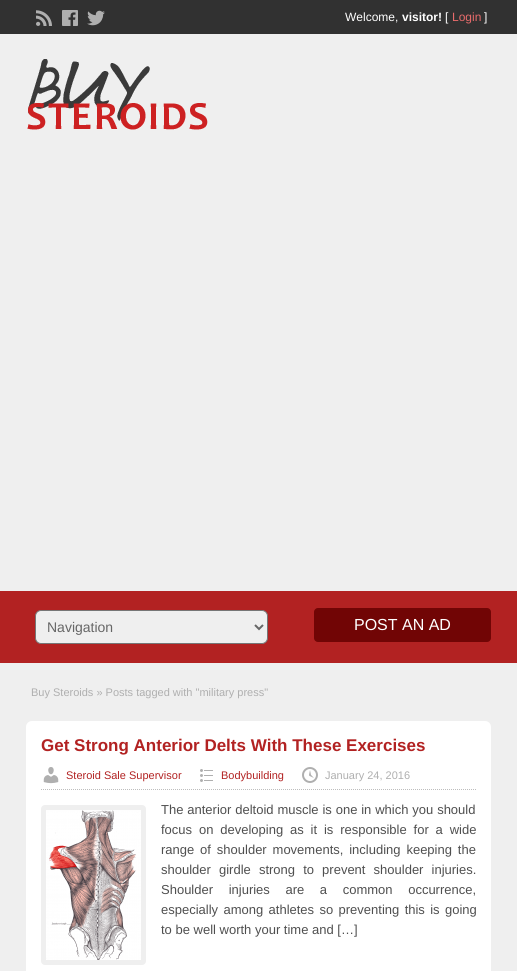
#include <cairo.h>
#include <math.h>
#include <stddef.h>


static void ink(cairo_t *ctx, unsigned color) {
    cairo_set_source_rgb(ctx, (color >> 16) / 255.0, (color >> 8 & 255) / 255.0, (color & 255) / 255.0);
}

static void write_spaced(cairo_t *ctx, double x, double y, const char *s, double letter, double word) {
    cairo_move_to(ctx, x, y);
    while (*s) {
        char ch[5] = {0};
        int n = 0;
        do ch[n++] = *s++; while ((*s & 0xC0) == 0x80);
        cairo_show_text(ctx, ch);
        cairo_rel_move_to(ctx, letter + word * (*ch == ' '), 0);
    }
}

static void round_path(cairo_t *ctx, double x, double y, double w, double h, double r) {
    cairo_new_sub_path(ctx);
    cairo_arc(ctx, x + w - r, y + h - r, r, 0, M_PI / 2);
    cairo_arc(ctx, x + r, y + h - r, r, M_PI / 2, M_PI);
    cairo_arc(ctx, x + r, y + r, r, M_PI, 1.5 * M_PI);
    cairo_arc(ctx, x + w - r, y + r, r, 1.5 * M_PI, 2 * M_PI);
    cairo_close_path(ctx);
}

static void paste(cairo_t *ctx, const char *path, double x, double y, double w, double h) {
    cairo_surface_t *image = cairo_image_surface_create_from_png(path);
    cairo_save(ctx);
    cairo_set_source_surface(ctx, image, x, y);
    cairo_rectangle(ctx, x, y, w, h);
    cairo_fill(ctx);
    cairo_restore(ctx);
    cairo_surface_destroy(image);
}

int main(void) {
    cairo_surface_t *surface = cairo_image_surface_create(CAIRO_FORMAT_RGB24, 517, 971);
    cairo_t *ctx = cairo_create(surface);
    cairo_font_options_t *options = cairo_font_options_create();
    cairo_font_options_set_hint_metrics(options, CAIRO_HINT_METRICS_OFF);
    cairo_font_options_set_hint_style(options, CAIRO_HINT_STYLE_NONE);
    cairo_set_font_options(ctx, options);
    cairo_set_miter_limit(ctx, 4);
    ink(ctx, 0xEFEFEF);
    cairo_paint(ctx);
    ink(ctx, 0x313131);
    cairo_rectangle(ctx, 0, 0, 517, 34);
    cairo_fill(ctx);
    paste(ctx, "media/1.png", 36, 10, 16, 16);
    paste(ctx, "media/2.png", 62, 10, 16, 16);
    paste(ctx, "media/3.png", 87, 10, 18, 16);
    cairo_select_font_face(ctx, "Liberation Sans", CAIRO_FONT_SLANT_NORMAL, CAIRO_FONT_WEIGHT_NORMAL);
    cairo_set_font_size(ctx, 12);
    ink(ctx, 0xFFFFFF);
    cairo_move_to(ctx, 345, 21);
    cairo_show_text(ctx, "Welcome,");
    cairo_select_font_face(ctx, "Liberation Sans", CAIRO_FONT_SLANT_NORMAL, CAIRO_FONT_WEIGHT_BOLD);
    cairo_move_to(ctx, 402, 21);
    cairo_show_text(ctx, "visitor!");
    cairo_select_font_face(ctx, "Liberation Sans", CAIRO_FONT_SLANT_NORMAL, CAIRO_FONT_WEIGHT_NORMAL);
    cairo_move_to(ctx, 445, 21);
    cairo_show_text(ctx, "[");
    ink(ctx, 0xE86B6B);
    cairo_move_to(ctx, 452, 21);
    cairo_show_text(ctx, "Login");
    ink(ctx, 0xFFFFFF);
    cairo_move_to(ctx, 484, 21);
    cairo_show_text(ctx, "]");
    paste(ctx, "media/4.png", 27, 59, 181, 71);
    ink(ctx, 0xB22222);
    cairo_rectangle(ctx, 0, 591, 517, 72);
    cairo_fill(ctx);
    ink(ctx, 0xEFEFEF);
    round_path(ctx, 35.5, 610.5, 232, 33, 5.5);
    cairo_fill_preserve(ctx);
    ink(ctx, 0x767676);
    cairo_set_line_width(ctx, 1);
    cairo_stroke(ctx);
    cairo_new_path(ctx);
    cairo_move_to(ctx, 255, 625);
    cairo_line_to(ctx, 259, 629);
    cairo_line_to(ctx, 263, 625);
    ink(ctx, 0x666666);
    cairo_set_line_width(ctx, 2);
    cairo_stroke(ctx);
    cairo_set_font_size(ctx, 14);
    cairo_move_to(ctx, 47, 632);
    cairo_show_text(ctx, "Navigation");
    ink(ctx, 0x710505);
    round_path(ctx, 314, 608, 177, 34, 4);
    cairo_fill(ctx);
    cairo_set_font_size(ctx, 16);
    ink(ctx, 0xFFFFFF);
    cairo_move_to(ctx, 354, 630);
    cairo_show_text(ctx, "POST AN AD");
    cairo_set_font_size(ctx, 11);
    ink(ctx, 0xAFAFAF);
    cairo_move_to(ctx, 31, 696);
    cairo_show_text(ctx, "Buy Steroids » Posts tagged with \"military press\"");
    ink(ctx, 0xFFFFFF);
    round_path(ctx, 26, 721, 465, 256, 6);
    cairo_fill(ctx);
    cairo_select_font_face(ctx, "Liberation Sans", CAIRO_FONT_SLANT_NORMAL, CAIRO_FONT_WEIGHT_BOLD);
    cairo_set_font_size(ctx, 17);
    ink(ctx, 0xB22222);
    cairo_move_to(ctx, 41, 751);
    cairo_show_text(ctx, "Get Strong Anterior Delts With These Exercises");
    cairo_new_path(ctx);
    cairo_move_to(ctx, 41, 789.5);
    cairo_line_to(ctx, 476, 789.5);
    ink(ctx, 0xBDBDBD);
    cairo_set_line_width(ctx, 1);
    cairo_set_dash(ctx, (double[]){1, 1}, 2, 0);
    cairo_stroke(ctx);
    paste(ctx, "media/5.png", 43, 767, 16, 17);
    cairo_select_font_face(ctx, "Liberation Sans", CAIRO_FONT_SLANT_NORMAL, CAIRO_FONT_WEIGHT_NORMAL);
    cairo_set_font_size(ctx, 11);
    ink(ctx, 0xB22222);
    cairo_move_to(ctx, 66, 779);
    cairo_show_text(ctx, "Steroid Sale Supervisor");
    paste(ctx, "media/6.png", 200, 769, 13, 13);
    cairo_move_to(ctx, 221, 779);
    cairo_show_text(ctx, "Bodybuilding");
    paste(ctx, "media/7.png", 302, 767, 16, 16);
    ink(ctx, 0xAFAFAF);
    cairo_move_to(ctx, 325, 779);
    cairo_show_text(ctx, "January 24, 2016");
    ink(ctx, 0xEFEFEF);
    round_path(ctx, 41, 805, 105, 160, 4);
    cairo_fill(ctx);
    paste(ctx, "media/8.png", 46, 810, 95, 150);
    cairo_set_font_size(ctx, 13);
    ink(ctx, 0x4F4F4F);
    write_spaced(ctx, 161, 814, "The anterior deltoid muscle is one in which you should", 0, 0.25);
    write_spaced(ctx, 161, 834, "focus on developing as it is responsible for a wide", 0, 3.25);
    write_spaced(ctx, 161, 854, "range of shoulder movements, including keeping the", 0, 2.25);
    write_spaced(ctx, 161, 874, "shoulder girdle strong to prevent shoulder injuries.", 0, 4.5);
    write_spaced(ctx, 161, 894, "Shoulder injuries are a common occurrence,", 0, 12);
    write_spaced(ctx, 161, 914, "especially among athletes so preventing this is going", 0, 1.75);
    cairo_move_to(ctx, 161, 934);
    cairo_show_text(ctx, "to be well worth your time and […]");
    cairo_surface_write_to_png(surface, "image.png");
    cairo_font_options_destroy(options);
    cairo_destroy(ctx);
    cairo_surface_destroy(surface);
    return 0;
}
